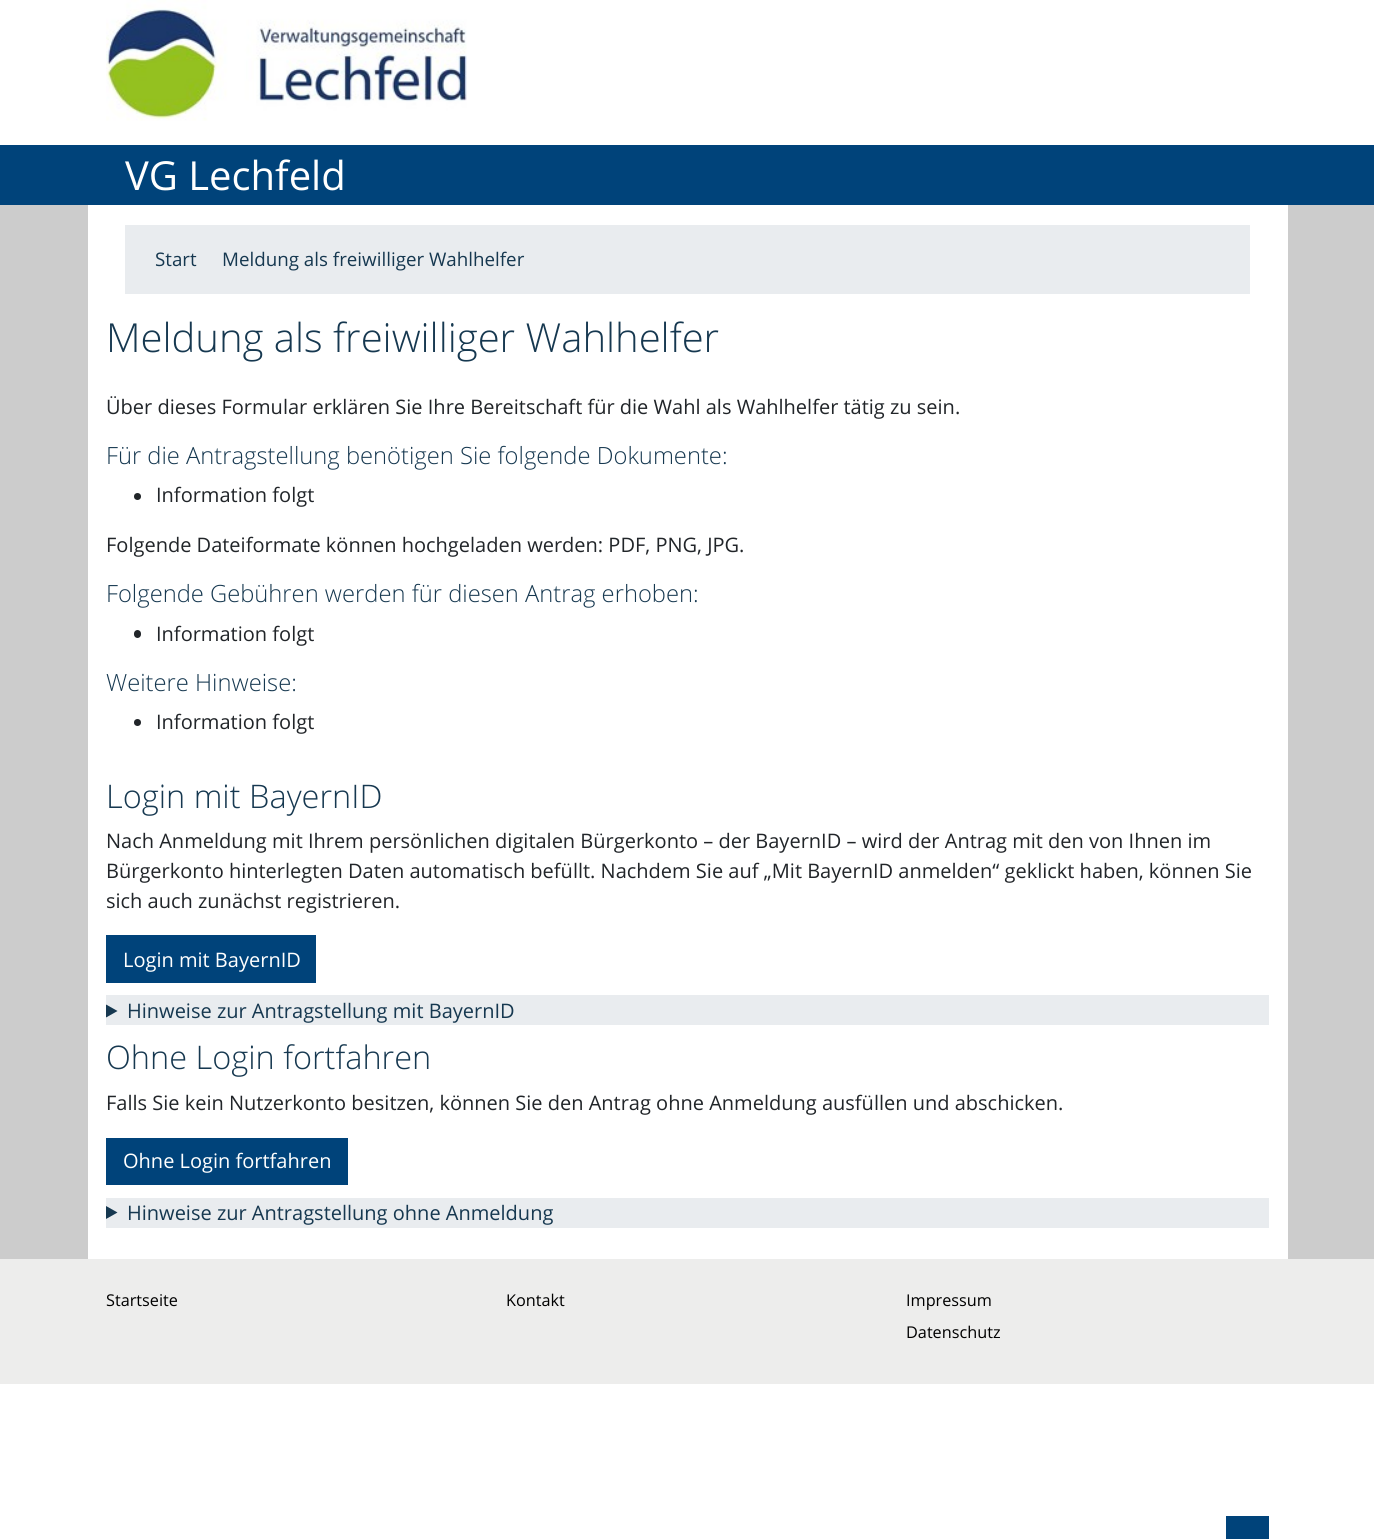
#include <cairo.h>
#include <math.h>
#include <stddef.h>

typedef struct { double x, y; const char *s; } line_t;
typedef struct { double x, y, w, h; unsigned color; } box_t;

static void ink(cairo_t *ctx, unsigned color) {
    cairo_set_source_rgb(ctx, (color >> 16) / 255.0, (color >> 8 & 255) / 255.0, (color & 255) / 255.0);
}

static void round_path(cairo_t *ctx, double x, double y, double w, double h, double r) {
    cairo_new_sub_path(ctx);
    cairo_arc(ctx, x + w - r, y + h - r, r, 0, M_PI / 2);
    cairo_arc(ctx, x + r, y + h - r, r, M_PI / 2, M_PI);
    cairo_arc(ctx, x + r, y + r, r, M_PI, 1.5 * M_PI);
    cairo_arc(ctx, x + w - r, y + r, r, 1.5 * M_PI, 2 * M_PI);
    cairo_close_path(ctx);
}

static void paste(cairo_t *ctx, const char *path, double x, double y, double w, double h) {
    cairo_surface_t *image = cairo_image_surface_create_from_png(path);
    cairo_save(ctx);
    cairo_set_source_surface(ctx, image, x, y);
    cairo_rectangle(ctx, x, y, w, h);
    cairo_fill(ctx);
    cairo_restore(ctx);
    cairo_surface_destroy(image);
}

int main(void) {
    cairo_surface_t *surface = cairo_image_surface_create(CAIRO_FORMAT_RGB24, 1374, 1539);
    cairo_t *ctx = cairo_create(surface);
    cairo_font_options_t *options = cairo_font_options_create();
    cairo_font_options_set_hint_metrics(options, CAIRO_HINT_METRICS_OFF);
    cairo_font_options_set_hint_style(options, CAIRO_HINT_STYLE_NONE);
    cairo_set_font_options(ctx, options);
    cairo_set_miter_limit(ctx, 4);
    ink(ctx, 0xFFFFFF);
    cairo_paint(ctx);
    paste(ctx, "media/1.png", 106, 0, 361, 121);
    ink(ctx, 0x00437A);
    cairo_rectangle(ctx, 0, 145, 1374, 60);
    cairo_fill(ctx);
    cairo_select_font_face(ctx, "Open Sans", CAIRO_FONT_SLANT_NORMAL, CAIRO_FONT_WEIGHT_NORMAL);
    cairo_set_font_size(ctx, 40);
    ink(ctx, 0xFFFFFF);
    cairo_move_to(ctx, 125, 190);
    cairo_show_text(ctx, "VG Lechfeld");
    {
        static const box_t items[] = {
            {0, 205, 1374, 1054, 0xCCCCCC},
            {88, 205, 1200, 1054, 0xFFFFFF},
            {125, 225, 1125, 69, 0xE9ECEF},
        };
        for (size_t i = 0; i < sizeof items / sizeof *items; i++) {
            ink(ctx, items[i].color);
            cairo_rectangle(ctx, items[i].x, items[i].y, items[i].w, items[i].h);
            cairo_fill(ctx);
        }
    }
    cairo_set_font_size(ctx, 18.75);
    ink(ctx, 0x163850);
    cairo_move_to(ctx, 155, 266);
    cairo_show_text(ctx, "Start");
    cairo_move_to(ctx, 222, 266);
    cairo_show_text(ctx, "Meldung als freiwilliger Wahlhelfer");
    cairo_select_font_face(ctx, "Open Sans Light", CAIRO_FONT_SLANT_NORMAL, CAIRO_FONT_WEIGHT_NORMAL);
    cairo_set_font_size(ctx, 40);
    cairo_move_to(ctx, 106, 352);
    cairo_show_text(ctx, "Meldung als freiwilliger Wahlhelfer");
    cairo_select_font_face(ctx, "Open Sans", CAIRO_FONT_SLANT_NORMAL, CAIRO_FONT_WEIGHT_NORMAL);
    cairo_set_font_size(ctx, 20);
    ink(ctx, 0x212529);
    cairo_move_to(ctx, 106, 414);
    cairo_show_text(ctx, "Über dieses Formular erklären Sie Ihre Bereitschaft für die Wahl als Wahlhelfer tätig zu sein.");
    cairo_select_font_face(ctx, "Open Sans Light", CAIRO_FONT_SLANT_NORMAL, CAIRO_FONT_WEIGHT_NORMAL);
    cairo_set_font_size(ctx, 23.75);
    ink(ctx, 0x163850);
    cairo_move_to(ctx, 106, 464);
    cairo_show_text(ctx, "Für die Antragstellung benötigen Sie folgende Dokumente:");
    ink(ctx, 0x212529);
    cairo_new_path(ctx);
    cairo_arc(ctx, 137.5, 496.5, 3.5, 0, 2 * M_PI);
    cairo_fill(ctx);
    cairo_select_font_face(ctx, "Open Sans", CAIRO_FONT_SLANT_NORMAL, CAIRO_FONT_WEIGHT_NORMAL);
    cairo_set_font_size(ctx, 20);
    cairo_move_to(ctx, 156, 502);
    cairo_show_text(ctx, "Information folgt");
    cairo_move_to(ctx, 106, 552);
    cairo_show_text(ctx, "Folgende Dateiformate können hochgeladen werden: PDF, PNG, JPG.");
    cairo_select_font_face(ctx, "Open Sans Light", CAIRO_FONT_SLANT_NORMAL, CAIRO_FONT_WEIGHT_NORMAL);
    cairo_set_font_size(ctx, 23.75);
    ink(ctx, 0x163850);
    cairo_move_to(ctx, 106, 602);
    cairo_show_text(ctx, "Folgende Gebühren werden für diesen Antrag erhoben:");
    ink(ctx, 0x212529);
    round_path(ctx, 134, 630, 7, 8, 3.5);
    cairo_fill(ctx);
    cairo_select_font_face(ctx, "Open Sans", CAIRO_FONT_SLANT_NORMAL, CAIRO_FONT_WEIGHT_NORMAL);
    cairo_set_font_size(ctx, 20);
    cairo_move_to(ctx, 156, 641);
    cairo_show_text(ctx, "Information folgt");
    cairo_select_font_face(ctx, "Open Sans Light", CAIRO_FONT_SLANT_NORMAL, CAIRO_FONT_WEIGHT_NORMAL);
    cairo_set_font_size(ctx, 23.75);
    ink(ctx, 0x163850);
    cairo_move_to(ctx, 106, 691);
    cairo_show_text(ctx, "Weitere Hinweise:");
    ink(ctx, 0x212529);
    cairo_new_path(ctx);
    cairo_arc(ctx, 137.5, 722.5, 3.5, 0, 2 * M_PI);
    cairo_fill(ctx);
    cairo_select_font_face(ctx, "Open Sans", CAIRO_FONT_SLANT_NORMAL, CAIRO_FONT_WEIGHT_NORMAL);
    cairo_set_font_size(ctx, 20);
    cairo_move_to(ctx, 156, 729);
    cairo_show_text(ctx, "Information folgt");
    cairo_select_font_face(ctx, "Open Sans Light", CAIRO_FONT_SLANT_NORMAL, CAIRO_FONT_WEIGHT_NORMAL);
    cairo_set_font_size(ctx, 32.5);
    ink(ctx, 0x163850);
    cairo_move_to(ctx, 106, 808);
    cairo_show_text(ctx, "Login mit BayernID");
    cairo_select_font_face(ctx, "Open Sans", CAIRO_FONT_SLANT_NORMAL, CAIRO_FONT_WEIGHT_NORMAL);
    cairo_set_font_size(ctx, 20);
    ink(ctx, 0x212529);
    {
        static const line_t items[] = {
            {106, 848, "Nach Anmeldung mit Ihrem persönlichen digitalen Bürgerkonto – der BayernID – wird der Antrag mit den von Ihnen im"},
            {106, 878, "Bürgerkonto hinterlegten Daten automatisch befüllt. Nachdem Sie auf „Mit BayernID anmelden“ geklickt haben, können Sie"},
            {106, 908, "sich auch zunächst registrieren."},
        };
        for (size_t i = 0; i < sizeof items / sizeof *items; i++) {
            cairo_move_to(ctx, items[i].x, items[i].y);
            cairo_show_text(ctx, items[i].s);
        }
    }
    ink(ctx, 0x00437A);
    cairo_rectangle(ctx, 106, 935, 210, 48);
    cairo_fill(ctx);
    ink(ctx, 0xFFFFFF);
    cairo_move_to(ctx, 123, 967);
    cairo_show_text(ctx, "Login mit BayernID");
    ink(ctx, 0xE9ECEF);
    cairo_rectangle(ctx, 106, 995, 1163, 30);
    cairo_fill(ctx);
    ink(ctx, 0x163850);
    cairo_new_path(ctx);
    cairo_move_to(ctx, 106, 1004.5);
    cairo_line_to(ctx, 117.5, 1011);
    cairo_line_to(ctx, 106, 1017.5);
    cairo_close_path(ctx);
    cairo_fill(ctx);
    cairo_move_to(ctx, 127, 1018);
    cairo_show_text(ctx, "Hinweise zur Antragstellung mit BayernID");
    cairo_select_font_face(ctx, "Open Sans Light", CAIRO_FONT_SLANT_NORMAL, CAIRO_FONT_WEIGHT_NORMAL);
    cairo_set_font_size(ctx, 32.5);
    cairo_move_to(ctx, 106, 1069);
    cairo_show_text(ctx, "Ohne Login fortfahren");
    cairo_select_font_face(ctx, "Open Sans", CAIRO_FONT_SLANT_NORMAL, CAIRO_FONT_WEIGHT_NORMAL);
    cairo_set_font_size(ctx, 20);
    ink(ctx, 0x212529);
    cairo_move_to(ctx, 106, 1110);
    cairo_show_text(ctx, "Falls Sie kein Nutzerkonto besitzen, können Sie den Antrag ohne Anmeldung ausfüllen und abschicken.");
    ink(ctx, 0x00437A);
    cairo_rectangle(ctx, 106, 1138, 242, 47);
    cairo_fill(ctx);
    ink(ctx, 0xFFFFFF);
    cairo_move_to(ctx, 123, 1168);
    cairo_show_text(ctx, "Ohne Login fortfahren");
    ink(ctx, 0xE9ECEF);
    cairo_rectangle(ctx, 106, 1198, 1163, 30);
    cairo_fill(ctx);
    ink(ctx, 0x163850);
    cairo_new_path(ctx);
    cairo_move_to(ctx, 106, 1206);
    cairo_line_to(ctx, 117.5, 1212.5);
    cairo_line_to(ctx, 106, 1219);
    cairo_close_path(ctx);
    cairo_fill(ctx);
    cairo_move_to(ctx, 127, 1220);
    cairo_show_text(ctx, "Hinweise zur Antragstellung ohne Anmeldung");
    ink(ctx, 0xEDEDEC);
    cairo_rectangle(ctx, 0, 1259, 1374, 125);
    cairo_fill(ctx);
    cairo_set_font_size(ctx, 16.25);
    ink(ctx, 0x000000);
    {
        static const line_t items[] = {
            {106, 1306, "Startseite"},
            {506, 1306, "Kontakt"},
            {906, 1306, "Impressum"},
            {906, 1338, "Datenschutz"},
        };
        for (size_t i = 0; i < sizeof items / sizeof *items; i++) {
            cairo_move_to(ctx, items[i].x, items[i].y);
            cairo_show_text(ctx, items[i].s);
        }
    }
    ink(ctx, 0x00437A);
    cairo_rectangle(ctx, 1226, 1516, 43, 23);
    cairo_fill(ctx);
    cairo_surface_write_to_png(surface, "image.png");
    cairo_font_options_destroy(options);
    cairo_destroy(ctx);
    cairo_surface_destroy(surface);
    return 0;
}
